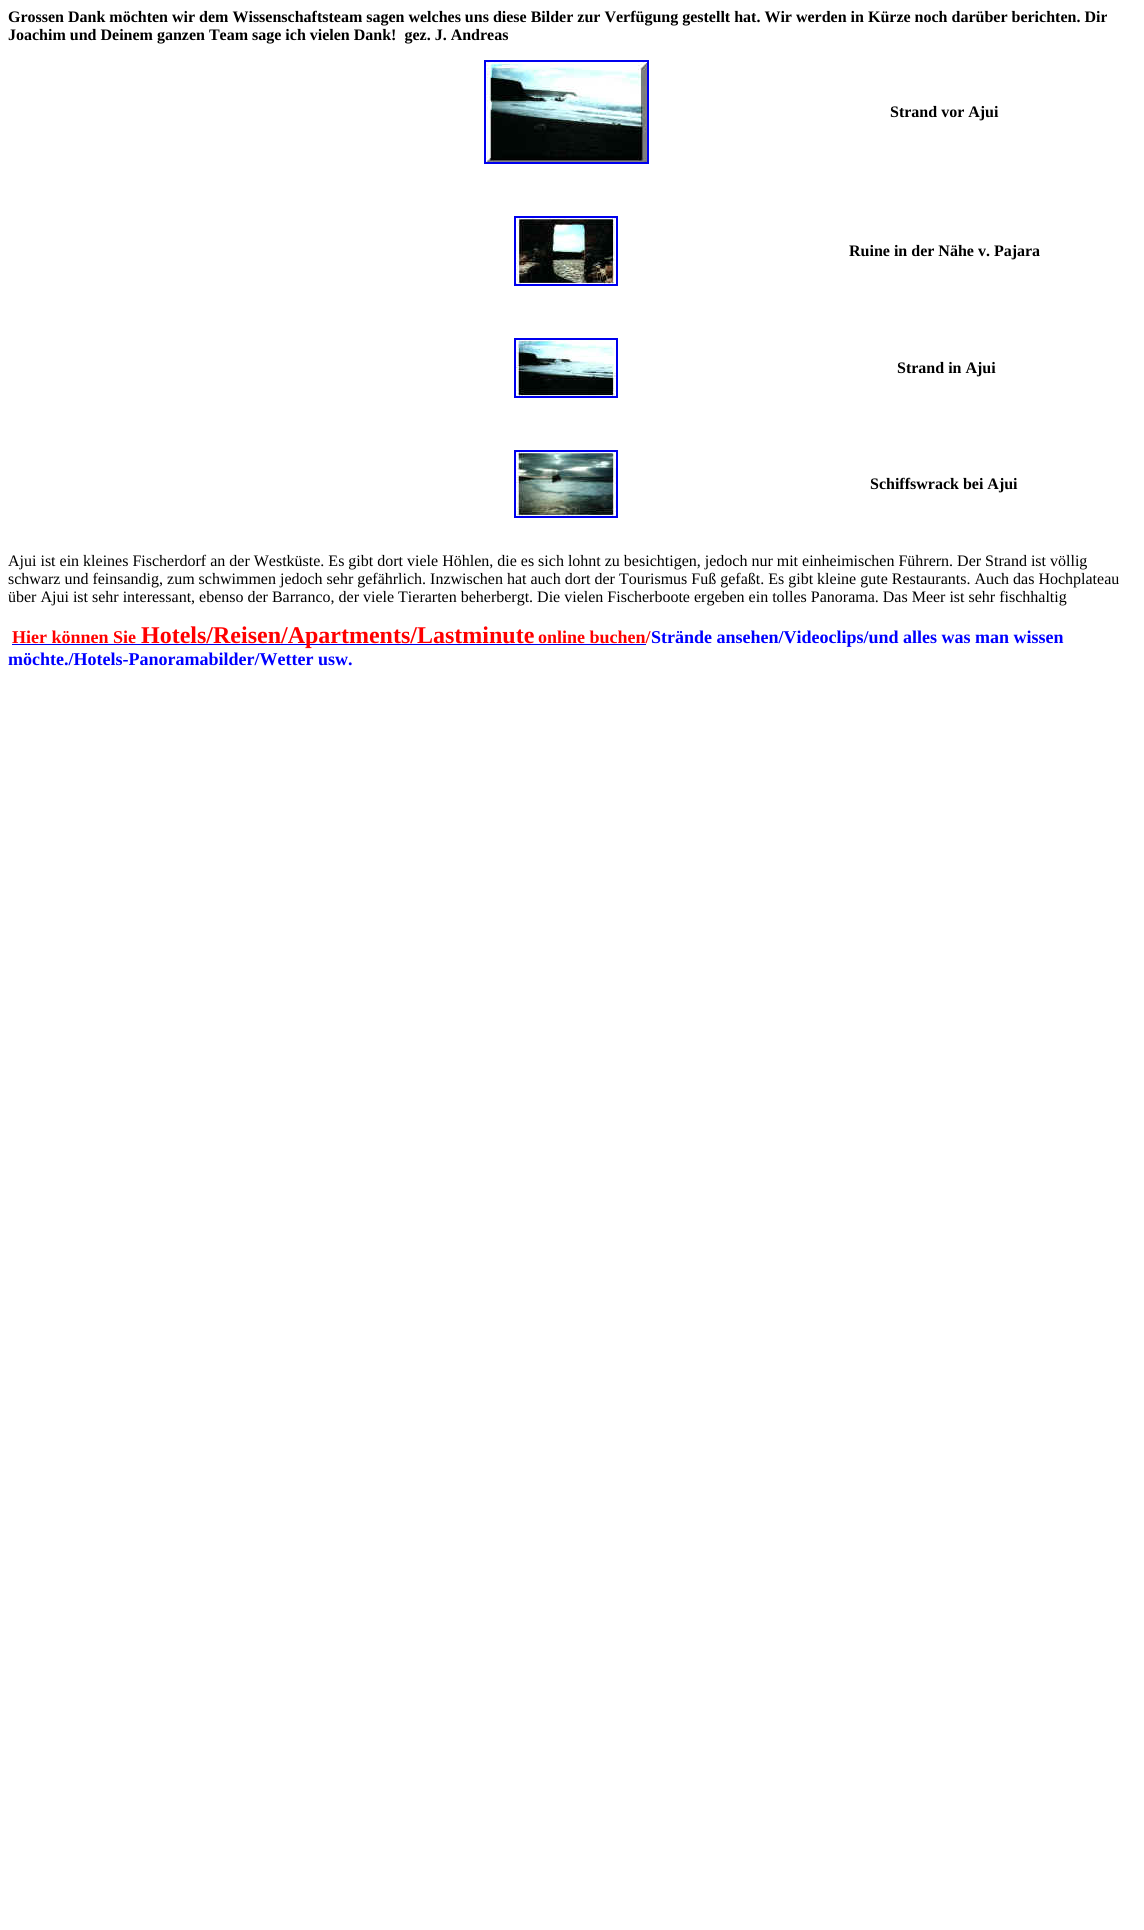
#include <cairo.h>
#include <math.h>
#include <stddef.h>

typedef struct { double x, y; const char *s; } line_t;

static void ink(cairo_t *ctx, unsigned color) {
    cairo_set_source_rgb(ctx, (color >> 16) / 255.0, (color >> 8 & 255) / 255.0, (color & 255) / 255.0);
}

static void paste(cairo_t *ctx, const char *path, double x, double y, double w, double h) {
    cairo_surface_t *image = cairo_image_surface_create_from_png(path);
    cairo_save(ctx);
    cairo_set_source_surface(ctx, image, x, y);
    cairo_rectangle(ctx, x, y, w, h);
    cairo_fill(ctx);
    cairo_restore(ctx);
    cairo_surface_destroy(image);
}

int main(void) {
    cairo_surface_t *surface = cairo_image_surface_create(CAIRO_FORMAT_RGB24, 1144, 1930);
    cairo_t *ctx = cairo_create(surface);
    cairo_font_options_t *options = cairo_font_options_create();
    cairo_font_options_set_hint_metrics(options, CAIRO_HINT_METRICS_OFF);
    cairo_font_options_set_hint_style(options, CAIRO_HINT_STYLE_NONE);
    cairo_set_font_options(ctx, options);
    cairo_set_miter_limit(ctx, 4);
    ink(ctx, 0xFFFFFF);
    cairo_paint(ctx);
    cairo_select_font_face(ctx, "Liberation Serif", CAIRO_FONT_SLANT_NORMAL, CAIRO_FONT_WEIGHT_BOLD);
    cairo_set_font_size(ctx, 16);
    ink(ctx, 0x000000);
    cairo_move_to(ctx, 8, 22);
    cairo_show_text(ctx, "Grossen Dank möchten wir dem Wissenschaftsteam sagen welches uns diese Bilder zur Verfügung gestellt hat. Wir werden in Kürze noch darüber berichten. Dir");
    cairo_move_to(ctx, 8, 40);
    cairo_show_text(ctx, "Joachim und Deinem ganzen Team sage ich vielen Dank!  gez. J. Andreas");
    cairo_rectangle(ctx, 485, 61, 163, 102);
    ink(ctx, 0x0000EE);
    cairo_stroke(ctx);
    paste(ctx, "media/1.png", 486, 62, 161, 100);
    ink(ctx, 0x000000);
    cairo_move_to(ctx, 890, 117);
    cairo_show_text(ctx, "Strand vor Ajui");
    cairo_rectangle(ctx, 515, 217, 102, 68);
    ink(ctx, 0x0000EE);
    cairo_stroke(ctx);
    paste(ctx, "media/2.png", 516, 218, 100, 66);
    ink(ctx, 0x000000);
    cairo_move_to(ctx, 849, 256);
    cairo_show_text(ctx, "Ruine in der Nähe v. Pajara");
    cairo_rectangle(ctx, 515, 339, 102, 58);
    ink(ctx, 0x0000EE);
    cairo_stroke(ctx);
    paste(ctx, "media/3.png", 516, 340, 100, 56);
    ink(ctx, 0x000000);
    cairo_move_to(ctx, 897, 373);
    cairo_show_text(ctx, "Strand in Ajui");
    cairo_rectangle(ctx, 515, 451, 102, 66);
    ink(ctx, 0x0000EE);
    cairo_stroke(ctx);
    paste(ctx, "media/4.png", 516, 452, 100, 64);
    ink(ctx, 0x000000);
    cairo_move_to(ctx, 870, 489);
    cairo_show_text(ctx, "Schiffswrack bei Ajui");
    cairo_select_font_face(ctx, "Liberation Serif", CAIRO_FONT_SLANT_NORMAL, CAIRO_FONT_WEIGHT_NORMAL);
    {
        static const line_t items[] = {
            {8, 566, "Ajui ist ein kleines Fischerdorf an der Westküste. Es gibt dort viele Höhlen, die es sich lohnt zu besichtigen, jedoch nur mit einheimischen Führern. Der Strand ist völlig"},
            {8, 584, "schwarz und feinsandig, zum schwimmen jedoch sehr gefährlich. Inzwischen hat auch dort der Tourismus Fuß gefaßt. Es gibt kleine gute Restaurants. Auch das Hochplateau"},
            {8, 602, "über Ajui ist sehr interessant, ebenso der Barranco, der viele Tierarten beherbergt. Die vielen Fischerboote ergeben ein tolles Panorama. Das Meer ist sehr fischhaltig"},
        };
        for (size_t i = 0; i < sizeof items / sizeof *items; i++) {
            cairo_move_to(ctx, items[i].x, items[i].y);
            cairo_show_text(ctx, items[i].s);
        }
    }
    cairo_select_font_face(ctx, "Liberation Serif", CAIRO_FONT_SLANT_NORMAL, CAIRO_FONT_WEIGHT_BOLD);
    cairo_set_font_size(ctx, 18);
    ink(ctx, 0xFF0000);
    cairo_move_to(ctx, 12, 643);
    cairo_show_text(ctx, "Hier können Sie");
    ink(ctx, 0x0000EE);
    cairo_rectangle(ctx, 12, 644, 634, 1);
    cairo_fill(ctx);
    cairo_set_font_size(ctx, 24);
    ink(ctx, 0xFF0000);
    cairo_move_to(ctx, 141, 643);
    cairo_show_text(ctx, "Hotels/Reisen/Apartments/Lastminute");
    cairo_set_font_size(ctx, 18);
    cairo_move_to(ctx, 538, 643);
    cairo_show_text(ctx, "online buchen/");
    ink(ctx, 0x0000FF);
    cairo_move_to(ctx, 651, 643);
    cairo_show_text(ctx, "Strände ansehen/Videoclips/und alles was man wissen");
    cairo_move_to(ctx, 8, 665);
    cairo_show_text(ctx, "möchte./Hotels-Panoramabilder/Wetter usw.");
    cairo_surface_write_to_png(surface, "image.png");
    cairo_font_options_destroy(options);
    cairo_destroy(ctx);
    cairo_surface_destroy(surface);
    return 0;
}
